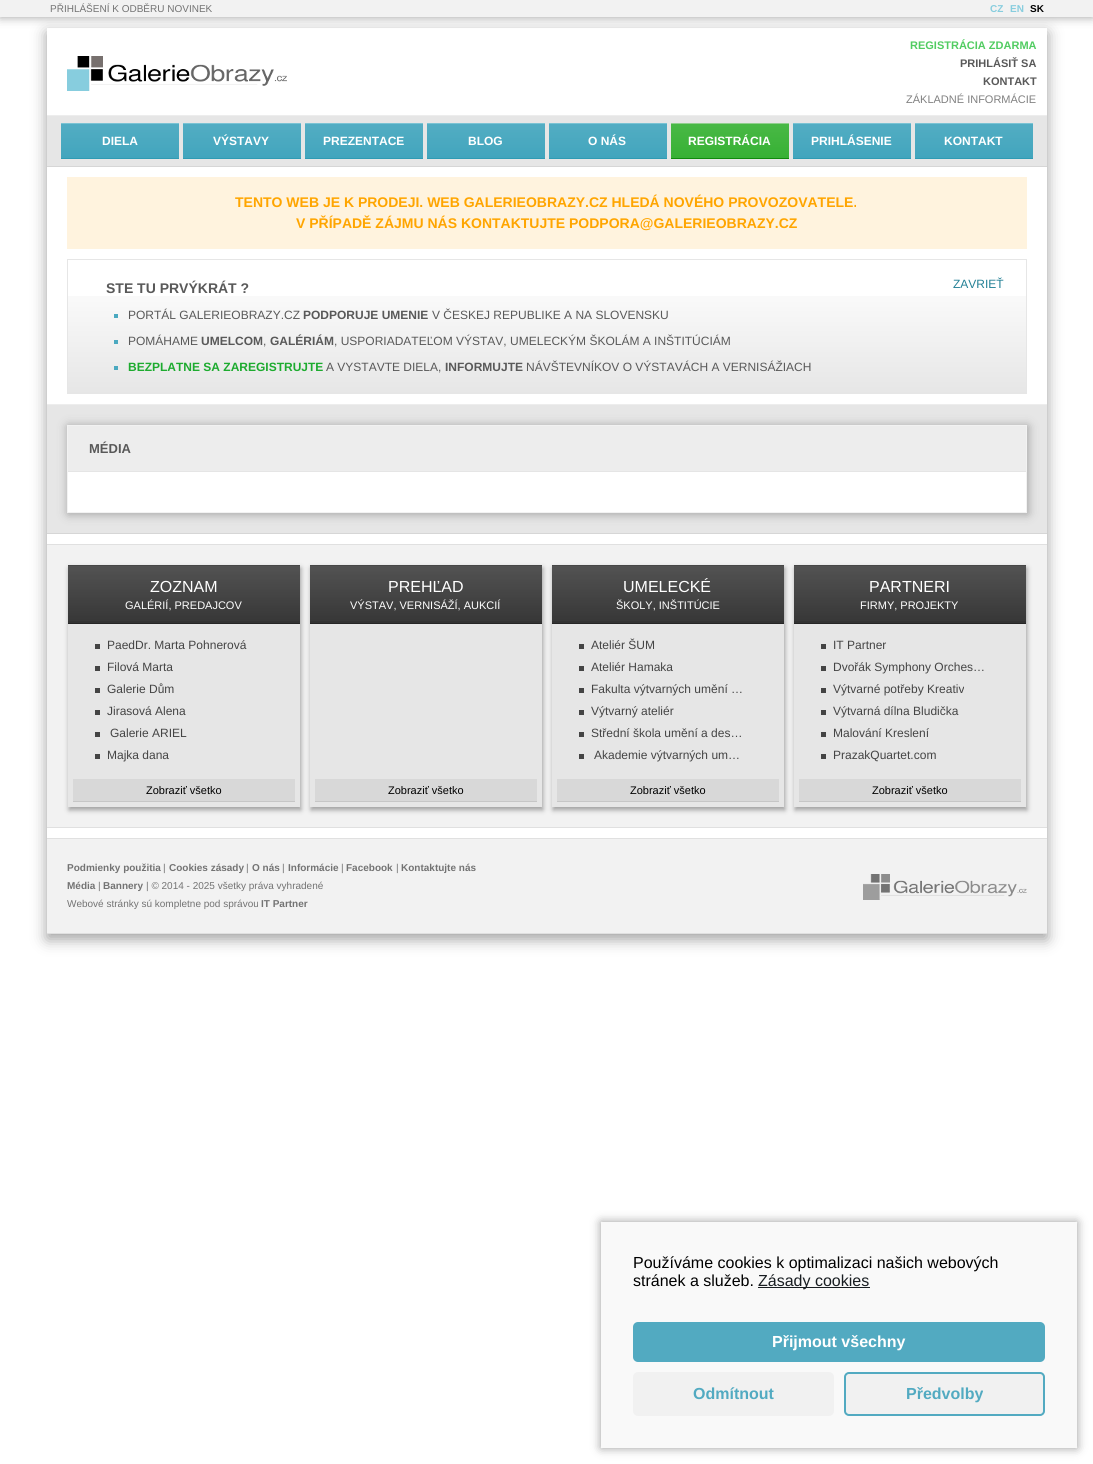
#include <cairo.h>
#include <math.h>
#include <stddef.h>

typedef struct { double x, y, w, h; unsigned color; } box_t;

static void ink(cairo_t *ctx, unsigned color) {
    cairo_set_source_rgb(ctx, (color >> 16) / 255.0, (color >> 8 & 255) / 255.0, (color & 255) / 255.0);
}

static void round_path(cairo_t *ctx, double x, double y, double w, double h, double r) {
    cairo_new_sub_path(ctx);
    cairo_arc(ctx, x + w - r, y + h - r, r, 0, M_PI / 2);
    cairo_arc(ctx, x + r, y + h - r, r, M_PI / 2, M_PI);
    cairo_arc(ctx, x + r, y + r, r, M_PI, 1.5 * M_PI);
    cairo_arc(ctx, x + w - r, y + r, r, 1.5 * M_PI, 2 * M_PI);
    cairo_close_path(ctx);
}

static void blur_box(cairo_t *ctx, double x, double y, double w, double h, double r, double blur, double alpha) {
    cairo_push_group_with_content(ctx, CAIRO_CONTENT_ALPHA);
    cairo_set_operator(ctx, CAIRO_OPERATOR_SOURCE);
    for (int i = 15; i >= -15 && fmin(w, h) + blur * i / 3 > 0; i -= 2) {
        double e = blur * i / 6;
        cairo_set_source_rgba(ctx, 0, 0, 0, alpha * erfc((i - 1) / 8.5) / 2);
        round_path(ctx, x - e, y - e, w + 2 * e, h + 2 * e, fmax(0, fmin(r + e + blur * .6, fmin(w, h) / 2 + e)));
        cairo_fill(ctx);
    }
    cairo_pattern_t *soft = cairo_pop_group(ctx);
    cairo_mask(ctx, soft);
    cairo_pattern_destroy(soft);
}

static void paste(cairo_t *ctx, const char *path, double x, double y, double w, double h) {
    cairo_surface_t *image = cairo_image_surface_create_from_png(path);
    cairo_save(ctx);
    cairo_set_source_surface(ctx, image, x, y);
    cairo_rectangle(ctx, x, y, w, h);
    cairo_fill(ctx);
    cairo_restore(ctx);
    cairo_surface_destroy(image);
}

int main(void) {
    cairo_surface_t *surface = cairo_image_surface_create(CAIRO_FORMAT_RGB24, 1093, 1464);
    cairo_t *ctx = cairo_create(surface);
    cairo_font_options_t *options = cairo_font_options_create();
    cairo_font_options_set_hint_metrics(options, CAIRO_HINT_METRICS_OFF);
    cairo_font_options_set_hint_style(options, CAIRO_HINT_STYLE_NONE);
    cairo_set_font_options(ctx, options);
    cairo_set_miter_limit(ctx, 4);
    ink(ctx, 0xFFFFFF);
    cairo_paint(ctx);
    ink(ctx, 0x9E9E9E);
    blur_box(ctx, 0, 0, 1093, 17, 0, 5, 1);
    cairo_save(ctx);
    cairo_set_fill_rule(ctx, CAIRO_FILL_RULE_EVEN_ODD);
    cairo_new_path(ctx);
    cairo_move_to(ctx, 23, 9);
    cairo_line_to(ctx, 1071, 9);
    cairo_line_to(ctx, 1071, 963);
    cairo_line_to(ctx, 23, 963);
    cairo_close_path(ctx);
    cairo_move_to(ctx, 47, 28);
    cairo_line_to(ctx, 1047, 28);
    cairo_line_to(ctx, 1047, 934);
    cairo_line_to(ctx, 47, 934);
    cairo_close_path(ctx);
    cairo_clip(ctx);
    blur_box(ctx, 47, 33, 1000, 906, 0, 7.5, 1);
    cairo_restore(ctx);
    ink(ctx, 0xF2F2F2);
    cairo_rectangle(ctx, 0, 0, 1093, 17);
    cairo_fill(ctx);
    cairo_select_font_face(ctx, "Liberation Sans", CAIRO_FONT_SLANT_NORMAL, CAIRO_FONT_WEIGHT_NORMAL);
    cairo_set_font_size(ctx, 10);
    ink(ctx, 0x737373);
    cairo_move_to(ctx, 50, 12);
    cairo_show_text(ctx, "PŘIHLÁŠENÍ K ODBĚRU NOVINEK");
    cairo_select_font_face(ctx, "Liberation Sans", CAIRO_FONT_SLANT_NORMAL, CAIRO_FONT_WEIGHT_BOLD);
    ink(ctx, 0x87CDDE);
    cairo_move_to(ctx, 990, 12);
    cairo_show_text(ctx, "CZ");
    cairo_move_to(ctx, 1010, 12);
    cairo_show_text(ctx, "EN");
    ink(ctx, 0x000000);
    cairo_move_to(ctx, 1030, 12);
    cairo_show_text(ctx, "SK");
    paste(ctx, "media/1.png", 67, 56, 220, 35);
    cairo_set_font_size(ctx, 11);
    ink(ctx, 0x51CC61);
    cairo_move_to(ctx, 910, 49);
    cairo_show_text(ctx, "REGISTRÁCIA ZDARMA");
    ink(ctx, 0x595959);
    cairo_move_to(ctx, 960, 67);
    cairo_show_text(ctx, "PRIHLÁSIŤ SA");
    cairo_move_to(ctx, 983, 85);
    cairo_show_text(ctx, "KONTAKT");
    cairo_select_font_face(ctx, "Liberation Sans", CAIRO_FONT_SLANT_NORMAL, CAIRO_FONT_WEIGHT_NORMAL);
    ink(ctx, 0x808080);
    cairo_move_to(ctx, 906, 103);
    cairo_show_text(ctx, "ZÁKLADNÉ INFORMÁCIE");
    {
        static const box_t items[] = {
            {47, 116, 1000, 50, 0xE6E6E6},
            {47, 115, 1000, 1, 0xEDEDED},
            {47, 166, 1000, 1, 0xD6D6D6},
            {61, 124, 118, 34, 0x339EB8},
        };
        for (size_t i = 0; i < sizeof items / sizeof *items; i++) {
            ink(ctx, items[i].color);
            cairo_rectangle(ctx, items[i].x, items[i].y, items[i].w, items[i].h);
            cairo_fill(ctx);
        }
    }
    paste(ctx, "media/2.png", 61, 124, 118, 34);
    ink(ctx, 0x7AC3D4);
    cairo_rectangle(ctx, 61, 123, 118, 1);
    cairo_fill(ctx);
    ink(ctx, 0x2F9BB4);
    cairo_rectangle(ctx, 61, 158, 118, 1);
    cairo_fill(ctx);
    cairo_select_font_face(ctx, "Liberation Sans", CAIRO_FONT_SLANT_NORMAL, CAIRO_FONT_WEIGHT_BOLD);
    cairo_set_font_size(ctx, 12);
    ink(ctx, 0xFFFFFF);
    cairo_move_to(ctx, 102, 145);
    cairo_show_text(ctx, "DIELA");
    ink(ctx, 0x339EB8);
    cairo_rectangle(ctx, 183, 124, 118, 34);
    cairo_fill(ctx);
    paste(ctx, "media/2.png", 183, 124, 118, 34);
    ink(ctx, 0x7AC3D4);
    cairo_rectangle(ctx, 183, 123, 118, 1);
    cairo_fill(ctx);
    ink(ctx, 0x2F9BB4);
    cairo_rectangle(ctx, 183, 158, 118, 1);
    cairo_fill(ctx);
    ink(ctx, 0xFFFFFF);
    cairo_move_to(ctx, 213, 145);
    cairo_show_text(ctx, "VÝSTAVY");
    ink(ctx, 0x339EB8);
    cairo_rectangle(ctx, 305, 124, 118, 34);
    cairo_fill(ctx);
    paste(ctx, "media/2.png", 305, 124, 118, 34);
    ink(ctx, 0x7AC3D4);
    cairo_rectangle(ctx, 305, 123, 118, 1);
    cairo_fill(ctx);
    ink(ctx, 0x2F9BB4);
    cairo_rectangle(ctx, 305, 158, 118, 1);
    cairo_fill(ctx);
    ink(ctx, 0xFFFFFF);
    cairo_move_to(ctx, 323, 145);
    cairo_show_text(ctx, "PREZENTACE");
    ink(ctx, 0x339EB8);
    cairo_rectangle(ctx, 427, 124, 118, 34);
    cairo_fill(ctx);
    paste(ctx, "media/2.png", 427, 124, 118, 34);
    ink(ctx, 0x7AC3D4);
    cairo_rectangle(ctx, 427, 123, 118, 1);
    cairo_fill(ctx);
    ink(ctx, 0x2F9BB4);
    cairo_rectangle(ctx, 427, 158, 118, 1);
    cairo_fill(ctx);
    ink(ctx, 0xFFFFFF);
    cairo_move_to(ctx, 468, 145);
    cairo_show_text(ctx, "BLOG");
    ink(ctx, 0x339EB8);
    cairo_rectangle(ctx, 549, 124, 118, 34);
    cairo_fill(ctx);
    paste(ctx, "media/2.png", 549, 124, 118, 34);
    ink(ctx, 0x7AC3D4);
    cairo_rectangle(ctx, 549, 123, 118, 1);
    cairo_fill(ctx);
    ink(ctx, 0x2F9BB4);
    cairo_rectangle(ctx, 549, 158, 118, 1);
    cairo_fill(ctx);
    ink(ctx, 0xFFFFFF);
    cairo_move_to(ctx, 588, 145);
    cairo_show_text(ctx, "O NÁS");
    ink(ctx, 0x27AB24);
    cairo_rectangle(ctx, 671, 124, 118, 34);
    cairo_fill(ctx);
    paste(ctx, "media/3.png", 671, 124, 118, 34);
    ink(ctx, 0x90CF8E);
    cairo_rectangle(ctx, 671, 123, 118, 1);
    cairo_fill(ctx);
    ink(ctx, 0x0F8A0C);
    cairo_rectangle(ctx, 671, 158, 118, 1);
    cairo_fill(ctx);
    ink(ctx, 0xFFFFFF);
    cairo_move_to(ctx, 688, 145);
    cairo_show_text(ctx, "REGISTRÁCIA");
    ink(ctx, 0x339EB8);
    cairo_rectangle(ctx, 793, 124, 118, 34);
    cairo_fill(ctx);
    paste(ctx, "media/2.png", 793, 124, 118, 34);
    ink(ctx, 0x7AC3D4);
    cairo_rectangle(ctx, 793, 123, 118, 1);
    cairo_fill(ctx);
    ink(ctx, 0x2F9BB4);
    cairo_rectangle(ctx, 793, 158, 118, 1);
    cairo_fill(ctx);
    ink(ctx, 0xFFFFFF);
    cairo_move_to(ctx, 811, 145);
    cairo_show_text(ctx, "PRIHLÁSENIE");
    ink(ctx, 0x339EB8);
    cairo_rectangle(ctx, 915, 124, 118, 34);
    cairo_fill(ctx);
    paste(ctx, "media/2.png", 915, 124, 118, 34);
    ink(ctx, 0x7AC3D4);
    cairo_rectangle(ctx, 915, 123, 118, 1);
    cairo_fill(ctx);
    ink(ctx, 0x2F9BB4);
    cairo_rectangle(ctx, 915, 158, 118, 1);
    cairo_fill(ctx);
    ink(ctx, 0xFFFFFF);
    cairo_move_to(ctx, 944, 145);
    cairo_show_text(ctx, "KONTAKT");
    ink(ctx, 0xFFF3DE);
    cairo_rectangle(ctx, 67, 177, 960, 72);
    cairo_fill(ctx);
    cairo_set_font_size(ctx, 14);
    ink(ctx, 0xFFA500);
    cairo_move_to(ctx, 235, 207);
    cairo_show_text(ctx, "TENTO WEB JE K PRODEJI. WEB GALERIEOBRAZY.CZ HLEDÁ NOVÉHO PROVOZOVATELE.");
    cairo_move_to(ctx, 296, 228);
    cairo_show_text(ctx, "V PŘÍPADĚ ZÁJMU NÁS KONTAKTUJTE PODPORA@GALERIEOBRAZY.CZ");
    paste(ctx, "media/4.png", 68, 296, 958, 97);
    cairo_rectangle(ctx, 67.5, 259.5, 959, 134);
    ink(ctx, 0xE6E6E6);
    cairo_set_line_width(ctx, 1);
    cairo_stroke(ctx);
    ink(ctx, 0x595959);
    cairo_move_to(ctx, 106, 293);
    cairo_show_text(ctx, "STE TU PRVÝKRÁT ?");
    cairo_select_font_face(ctx, "Liberation Sans", CAIRO_FONT_SLANT_NORMAL, CAIRO_FONT_WEIGHT_NORMAL);
    cairo_set_font_size(ctx, 12);
    ink(ctx, 0x248196);
    cairo_move_to(ctx, 953, 288);
    cairo_show_text(ctx, "ZAVRIEŤ");
    ink(ctx, 0x4BA9C0);
    cairo_rectangle(ctx, 114, 314, 4, 4);
    cairo_fill(ctx);
    ink(ctx, 0x595959);
    cairo_move_to(ctx, 128, 319);
    cairo_show_text(ctx, "PORTÁL GALERIEOBRAZY.CZ");
    cairo_select_font_face(ctx, "Liberation Sans", CAIRO_FONT_SLANT_NORMAL, CAIRO_FONT_WEIGHT_BOLD);
    cairo_move_to(ctx, 303, 319);
    cairo_show_text(ctx, "PODPORUJE UMENIE");
    cairo_select_font_face(ctx, "Liberation Sans", CAIRO_FONT_SLANT_NORMAL, CAIRO_FONT_WEIGHT_NORMAL);
    cairo_move_to(ctx, 432, 319);
    cairo_show_text(ctx, "V ČESKEJ REPUBLIKE A NA SLOVENSKU");
    ink(ctx, 0x4BA9C0);
    cairo_rectangle(ctx, 114, 340, 4, 4);
    cairo_fill(ctx);
    ink(ctx, 0x595959);
    cairo_move_to(ctx, 128, 345);
    cairo_show_text(ctx, "POMÁHAME");
    cairo_select_font_face(ctx, "Liberation Sans", CAIRO_FONT_SLANT_NORMAL, CAIRO_FONT_WEIGHT_BOLD);
    cairo_move_to(ctx, 201, 345);
    cairo_show_text(ctx, "UMELCOM");
    cairo_select_font_face(ctx, "Liberation Sans", CAIRO_FONT_SLANT_NORMAL, CAIRO_FONT_WEIGHT_NORMAL);
    cairo_move_to(ctx, 263, 345);
    cairo_show_text(ctx, ",");
    cairo_select_font_face(ctx, "Liberation Sans", CAIRO_FONT_SLANT_NORMAL, CAIRO_FONT_WEIGHT_BOLD);
    cairo_move_to(ctx, 270, 345);
    cairo_show_text(ctx, "GALÉRIÁM");
    cairo_select_font_face(ctx, "Liberation Sans", CAIRO_FONT_SLANT_NORMAL, CAIRO_FONT_WEIGHT_NORMAL);
    cairo_move_to(ctx, 334, 345);
    cairo_show_text(ctx, ", USPORIADATEĽOM VÝSTAV, UMELECKÝM ŠKOLÁM A INŠTITÚCIÁM");
    ink(ctx, 0x4BA9C0);
    cairo_rectangle(ctx, 114, 366, 4, 4);
    cairo_fill(ctx);
    cairo_select_font_face(ctx, "Liberation Sans", CAIRO_FONT_SLANT_NORMAL, CAIRO_FONT_WEIGHT_BOLD);
    ink(ctx, 0x1DAB2F);
    cairo_move_to(ctx, 128, 371);
    cairo_show_text(ctx, "BEZPLATNE SA ZAREGISTRUJTE");
    cairo_select_font_face(ctx, "Liberation Sans", CAIRO_FONT_SLANT_NORMAL, CAIRO_FONT_WEIGHT_NORMAL);
    ink(ctx, 0x595959);
    cairo_move_to(ctx, 326, 371);
    cairo_show_text(ctx, "A VYSTAVTE DIELA,");
    cairo_select_font_face(ctx, "Liberation Sans", CAIRO_FONT_SLANT_NORMAL, CAIRO_FONT_WEIGHT_BOLD);
    cairo_move_to(ctx, 445, 371);
    cairo_show_text(ctx, "INFORMUJTE");
    cairo_select_font_face(ctx, "Liberation Sans", CAIRO_FONT_SLANT_NORMAL, CAIRO_FONT_WEIGHT_NORMAL);
    cairo_move_to(ctx, 526, 371);
    cairo_show_text(ctx, "NÁVŠTEVNÍKOV O VÝSTAVÁCH A VERNISÁŽIACH");
    {
        static const box_t items[] = {
            {47, 405, 1000, 128, 0xE6E6E6},
            {47, 404, 1000, 1, 0xEDEDED},
            {47, 533, 1000, 1, 0xD6D6D6},
        };
        for (size_t i = 0; i < sizeof items / sizeof *items; i++) {
            ink(ctx, items[i].color);
            cairo_rectangle(ctx, items[i].x, items[i].y, items[i].w, items[i].h);
            cairo_fill(ctx);
        }
    }
    ink(ctx, 0x9E9E9E);
    blur_box(ctx, 68, 426, 960, 88, 0, 5, 1);
    ink(ctx, 0xFFFFFF);
    cairo_rectangle(ctx, 68, 472, 958, 40);
    cairo_fill(ctx);
    cairo_rectangle(ctx, 67.5, 425.5, 959, 87);
    ink(ctx, 0xF2F2F2);
    cairo_stroke(ctx);
    ink(ctx, 0xEDEDED);
    cairo_rectangle(ctx, 68, 426, 958, 45);
    cairo_fill(ctx);
    ink(ctx, 0xE5E5E5);
    cairo_rectangle(ctx, 68, 471, 958, 1);
    cairo_fill(ctx);
    cairo_select_font_face(ctx, "Liberation Sans", CAIRO_FONT_SLANT_NORMAL, CAIRO_FONT_WEIGHT_BOLD);
    cairo_set_font_size(ctx, 13);
    ink(ctx, 0x595959);
    cairo_move_to(ctx, 89, 453);
    cairo_show_text(ctx, "MÉDIA");
    {
        static const box_t items[] = {
            {47, 545, 1000, 282, 0xF2F2F2},
            {47, 544, 1000, 1, 0xE0E0E0},
            {47, 827, 1000, 1, 0xE0E0E0},
        };
        for (size_t i = 0; i < sizeof items / sizeof *items; i++) {
            ink(ctx, items[i].color);
            cairo_rectangle(ctx, items[i].x, items[i].y, items[i].w, items[i].h);
            cairo_fill(ctx);
        }
    }
    ink(ctx, 0x9E9E9E);
    blur_box(ctx, 69, 568, 232, 242, 0, 2.5, 1);
    ink(ctx, 0xE6E6E6);
    cairo_rectangle(ctx, 68, 624, 232, 183);
    cairo_fill(ctx);
    ink(ctx, 0x333333);
    cairo_rectangle(ctx, 68, 566, 232, 57);
    cairo_fill(ctx);
    paste(ctx, "media/5.png", 68, 566, 232, 55);
    ink(ctx, 0x474747);
    cairo_rectangle(ctx, 68, 565, 232, 1);
    cairo_fill(ctx);
    ink(ctx, 0x262626);
    cairo_rectangle(ctx, 68, 623, 232, 1);
    cairo_fill(ctx);
    cairo_select_font_face(ctx, "Liberation Sans", CAIRO_FONT_SLANT_NORMAL, CAIRO_FONT_WEIGHT_NORMAL);
    cairo_set_font_size(ctx, 16);
    ink(ctx, 0xFFFFFF);
    cairo_move_to(ctx, 150, 592);
    cairo_show_text(ctx, "ZOZNAM");
    cairo_set_font_size(ctx, 11);
    cairo_move_to(ctx, 125, 609);
    cairo_show_text(ctx, "GALÉRIÍ, PREDAJCOV");
    ink(ctx, 0x444444);
    cairo_rectangle(ctx, 95, 644, 5, 5);
    cairo_fill(ctx);
    cairo_set_font_size(ctx, 12);
    cairo_move_to(ctx, 107, 649);
    cairo_show_text(ctx, "PaedDr. Marta Pohnerová");
    cairo_rectangle(ctx, 95, 666, 5, 5);
    cairo_fill(ctx);
    cairo_move_to(ctx, 107, 671);
    cairo_show_text(ctx, "Filová Marta");
    cairo_rectangle(ctx, 95, 688, 5, 5);
    cairo_fill(ctx);
    cairo_move_to(ctx, 107, 693);
    cairo_show_text(ctx, "Galerie Dům");
    cairo_rectangle(ctx, 95, 710, 5, 5);
    cairo_fill(ctx);
    cairo_move_to(ctx, 107, 715);
    cairo_show_text(ctx, "Jirasová Alena");
    cairo_rectangle(ctx, 95, 732, 5, 5);
    cairo_fill(ctx);
    cairo_move_to(ctx, 110, 737);
    cairo_show_text(ctx, "Galerie ARIEL");
    cairo_rectangle(ctx, 95, 754, 5, 5);
    cairo_fill(ctx);
    cairo_move_to(ctx, 107, 759);
    cairo_show_text(ctx, "Majka dana");
    ink(ctx, 0xD8D8D8);
    cairo_rectangle(ctx, 73, 779, 222, 22);
    cairo_fill(ctx);
    ink(ctx, 0xC6C6C6);
    cairo_rectangle(ctx, 73, 801, 222, 1);
    cairo_fill(ctx);
    cairo_set_font_size(ctx, 11);
    ink(ctx, 0x000000);
    cairo_move_to(ctx, 146, 794);
    cairo_show_text(ctx, "Zobraziť všetko");
    ink(ctx, 0x9E9E9E);
    blur_box(ctx, 311, 568, 232, 242, 0, 2.5, 1);
    ink(ctx, 0xE6E6E6);
    cairo_rectangle(ctx, 310, 624, 232, 183);
    cairo_fill(ctx);
    ink(ctx, 0x333333);
    cairo_rectangle(ctx, 310, 566, 232, 57);
    cairo_fill(ctx);
    paste(ctx, "media/5.png", 310, 566, 232, 55);
    ink(ctx, 0x474747);
    cairo_rectangle(ctx, 310, 565, 232, 1);
    cairo_fill(ctx);
    ink(ctx, 0x262626);
    cairo_rectangle(ctx, 310, 623, 232, 1);
    cairo_fill(ctx);
    cairo_set_font_size(ctx, 16);
    ink(ctx, 0xFFFFFF);
    cairo_move_to(ctx, 388, 592);
    cairo_show_text(ctx, "PREHĽAD");
    cairo_set_font_size(ctx, 11);
    cairo_move_to(ctx, 350, 609);
    cairo_show_text(ctx, "VÝSTAV, VERNISÁŽÍ, AUKCIÍ");
    ink(ctx, 0xD8D8D8);
    cairo_rectangle(ctx, 315, 779, 222, 22);
    cairo_fill(ctx);
    ink(ctx, 0xC6C6C6);
    cairo_rectangle(ctx, 315, 801, 222, 1);
    cairo_fill(ctx);
    ink(ctx, 0x000000);
    cairo_move_to(ctx, 388, 794);
    cairo_show_text(ctx, "Zobraziť všetko");
    ink(ctx, 0x9E9E9E);
    blur_box(ctx, 553, 568, 232, 242, 0, 2.5, 1);
    ink(ctx, 0xE6E6E6);
    cairo_rectangle(ctx, 552, 624, 232, 183);
    cairo_fill(ctx);
    ink(ctx, 0x333333);
    cairo_rectangle(ctx, 552, 566, 232, 57);
    cairo_fill(ctx);
    paste(ctx, "media/5.png", 552, 566, 232, 55);
    ink(ctx, 0x474747);
    cairo_rectangle(ctx, 552, 565, 232, 1);
    cairo_fill(ctx);
    ink(ctx, 0x262626);
    cairo_rectangle(ctx, 552, 623, 232, 1);
    cairo_fill(ctx);
    cairo_set_font_size(ctx, 16);
    ink(ctx, 0xFFFFFF);
    cairo_move_to(ctx, 623, 592);
    cairo_show_text(ctx, "UMELECKÉ");
    cairo_set_font_size(ctx, 11);
    cairo_move_to(ctx, 616, 609);
    cairo_show_text(ctx, "ŠKOLY, INŠTITÚCIE");
    ink(ctx, 0x444444);
    cairo_rectangle(ctx, 579, 644, 5, 5);
    cairo_fill(ctx);
    cairo_set_font_size(ctx, 12);
    cairo_move_to(ctx, 591, 649);
    cairo_show_text(ctx, "Ateliér ŠUM");
    cairo_rectangle(ctx, 579, 666, 5, 5);
    cairo_fill(ctx);
    cairo_move_to(ctx, 591, 671);
    cairo_show_text(ctx, "Ateliér Hamaka");
    cairo_rectangle(ctx, 579, 688, 5, 5);
    cairo_fill(ctx);
    cairo_move_to(ctx, 591, 693);
    cairo_show_text(ctx, "Fakulta výtvarných umění …");
    cairo_rectangle(ctx, 579, 710, 5, 5);
    cairo_fill(ctx);
    cairo_move_to(ctx, 591, 715);
    cairo_show_text(ctx, "Výtvarný ateliér");
    cairo_rectangle(ctx, 579, 732, 5, 5);
    cairo_fill(ctx);
    cairo_move_to(ctx, 591, 737);
    cairo_show_text(ctx, "Střední škola umění a des…");
    cairo_rectangle(ctx, 579, 754, 5, 5);
    cairo_fill(ctx);
    cairo_move_to(ctx, 594, 759);
    cairo_show_text(ctx, "Akademie výtvarných um…");
    ink(ctx, 0xD8D8D8);
    cairo_rectangle(ctx, 557, 779, 222, 22);
    cairo_fill(ctx);
    ink(ctx, 0xC6C6C6);
    cairo_rectangle(ctx, 557, 801, 222, 1);
    cairo_fill(ctx);
    cairo_set_font_size(ctx, 11);
    ink(ctx, 0x000000);
    cairo_move_to(ctx, 630, 794);
    cairo_show_text(ctx, "Zobraziť všetko");
    ink(ctx, 0x9E9E9E);
    blur_box(ctx, 795, 568, 232, 242, 0, 2.5, 1);
    ink(ctx, 0xE6E6E6);
    cairo_rectangle(ctx, 794, 624, 232, 183);
    cairo_fill(ctx);
    ink(ctx, 0x333333);
    cairo_rectangle(ctx, 794, 566, 232, 57);
    cairo_fill(ctx);
    paste(ctx, "media/5.png", 794, 566, 232, 55);
    ink(ctx, 0x474747);
    cairo_rectangle(ctx, 794, 565, 232, 1);
    cairo_fill(ctx);
    ink(ctx, 0x262626);
    cairo_rectangle(ctx, 794, 623, 232, 1);
    cairo_fill(ctx);
    cairo_set_font_size(ctx, 16);
    ink(ctx, 0xFFFFFF);
    cairo_move_to(ctx, 869, 592);
    cairo_show_text(ctx, "PARTNERI");
    cairo_set_font_size(ctx, 11);
    cairo_move_to(ctx, 860, 609);
    cairo_show_text(ctx, "FIRMY, PROJEKTY");
    ink(ctx, 0x444444);
    cairo_rectangle(ctx, 821, 644, 5, 5);
    cairo_fill(ctx);
    cairo_set_font_size(ctx, 12);
    cairo_move_to(ctx, 833, 649);
    cairo_show_text(ctx, "IT Partner");
    cairo_rectangle(ctx, 821, 666, 5, 5);
    cairo_fill(ctx);
    cairo_move_to(ctx, 833, 671);
    cairo_show_text(ctx, "Dvořák Symphony Orches…");
    cairo_rectangle(ctx, 821, 688, 5, 5);
    cairo_fill(ctx);
    cairo_move_to(ctx, 833, 693);
    cairo_show_text(ctx, "Výtvarné potřeby Kreativ");
    cairo_rectangle(ctx, 821, 710, 5, 5);
    cairo_fill(ctx);
    cairo_move_to(ctx, 833, 715);
    cairo_show_text(ctx, "Výtvarná dílna Bludička");
    cairo_rectangle(ctx, 821, 732, 5, 5);
    cairo_fill(ctx);
    cairo_move_to(ctx, 833, 737);
    cairo_show_text(ctx, "Malování Kreslení");
    cairo_rectangle(ctx, 821, 754, 5, 5);
    cairo_fill(ctx);
    cairo_move_to(ctx, 833, 759);
    cairo_show_text(ctx, "PrazakQuartet.com");
    ink(ctx, 0xD8D8D8);
    cairo_rectangle(ctx, 799, 779, 222, 22);
    cairo_fill(ctx);
    ink(ctx, 0xC6C6C6);
    cairo_rectangle(ctx, 799, 801, 222, 1);
    cairo_fill(ctx);
    cairo_set_font_size(ctx, 11);
    ink(ctx, 0x000000);
    cairo_move_to(ctx, 872, 794);
    cairo_show_text(ctx, "Zobraziť všetko");
    {
        static const box_t items[] = {
            {47, 839, 1000, 94, 0xF2F2F2},
            {47, 838, 1000, 1, 0xE0E0E0},
            {47, 933, 1000, 1, 0xE0E0E0},
        };
        for (size_t i = 0; i < sizeof items / sizeof *items; i++) {
            ink(ctx, items[i].color);
            cairo_rectangle(ctx, items[i].x, items[i].y, items[i].w, items[i].h);
            cairo_fill(ctx);
        }
    }
    cairo_select_font_face(ctx, "Liberation Sans", CAIRO_FONT_SLANT_NORMAL, CAIRO_FONT_WEIGHT_BOLD);
    cairo_set_font_size(ctx, 10);
    ink(ctx, 0x737373);
    cairo_move_to(ctx, 67, 871);
    cairo_show_text(ctx, "Podmienky použitia");
    cairo_select_font_face(ctx, "Liberation Sans", CAIRO_FONT_SLANT_NORMAL, CAIRO_FONT_WEIGHT_NORMAL);
    cairo_move_to(ctx, 163, 871);
    cairo_show_text(ctx, "|");
    cairo_select_font_face(ctx, "Liberation Sans", CAIRO_FONT_SLANT_NORMAL, CAIRO_FONT_WEIGHT_BOLD);
    cairo_move_to(ctx, 169, 871);
    cairo_show_text(ctx, "Cookies zásady");
    cairo_select_font_face(ctx, "Liberation Sans", CAIRO_FONT_SLANT_NORMAL, CAIRO_FONT_WEIGHT_NORMAL);
    cairo_move_to(ctx, 246, 871);
    cairo_show_text(ctx, "|");
    cairo_select_font_face(ctx, "Liberation Sans", CAIRO_FONT_SLANT_NORMAL, CAIRO_FONT_WEIGHT_BOLD);
    cairo_move_to(ctx, 252, 871);
    cairo_show_text(ctx, "O nás");
    cairo_select_font_face(ctx, "Liberation Sans", CAIRO_FONT_SLANT_NORMAL, CAIRO_FONT_WEIGHT_NORMAL);
    cairo_move_to(ctx, 282, 871);
    cairo_show_text(ctx, "|");
    cairo_select_font_face(ctx, "Liberation Sans", CAIRO_FONT_SLANT_NORMAL, CAIRO_FONT_WEIGHT_BOLD);
    cairo_move_to(ctx, 288, 871);
    cairo_show_text(ctx, "Informácie");
    cairo_select_font_face(ctx, "Liberation Sans", CAIRO_FONT_SLANT_NORMAL, CAIRO_FONT_WEIGHT_NORMAL);
    cairo_move_to(ctx, 341, 871);
    cairo_show_text(ctx, "|");
    cairo_select_font_face(ctx, "Liberation Sans", CAIRO_FONT_SLANT_NORMAL, CAIRO_FONT_WEIGHT_BOLD);
    cairo_move_to(ctx, 346, 871);
    cairo_show_text(ctx, "Facebook");
    cairo_select_font_face(ctx, "Liberation Sans", CAIRO_FONT_SLANT_NORMAL, CAIRO_FONT_WEIGHT_NORMAL);
    cairo_move_to(ctx, 396, 871);
    cairo_show_text(ctx, "|");
    cairo_select_font_face(ctx, "Liberation Sans", CAIRO_FONT_SLANT_NORMAL, CAIRO_FONT_WEIGHT_BOLD);
    cairo_move_to(ctx, 401, 871);
    cairo_show_text(ctx, "Kontaktujte nás");
    cairo_move_to(ctx, 67, 889);
    cairo_show_text(ctx, "Média");
    cairo_select_font_face(ctx, "Liberation Sans", CAIRO_FONT_SLANT_NORMAL, CAIRO_FONT_WEIGHT_NORMAL);
    cairo_move_to(ctx, 98, 889);
    cairo_show_text(ctx, "|");
    cairo_select_font_face(ctx, "Liberation Sans", CAIRO_FONT_SLANT_NORMAL, CAIRO_FONT_WEIGHT_BOLD);
    cairo_move_to(ctx, 103, 889);
    cairo_show_text(ctx, "Bannery");
    cairo_select_font_face(ctx, "Liberation Sans", CAIRO_FONT_SLANT_NORMAL, CAIRO_FONT_WEIGHT_NORMAL);
    cairo_move_to(ctx, 146, 889);
    cairo_show_text(ctx, "| © 2014 - 2025 všetky práva vyhradené");
    cairo_move_to(ctx, 67, 907);
    cairo_show_text(ctx, "Webové stránky sú kompletne pod správou");
    cairo_select_font_face(ctx, "Liberation Sans", CAIRO_FONT_SLANT_NORMAL, CAIRO_FONT_WEIGHT_BOLD);
    cairo_move_to(ctx, 261, 907);
    cairo_show_text(ctx, "IT Partner");
    paste(ctx, "media/6.png", 863, 874, 164, 26);
    ink(ctx, 0x000000);
    blur_box(ctx, 601, 1222, 476, 226, 0, 5, 0.4);
    ink(ctx, 0xF9F9F9);
    cairo_rectangle(ctx, 601, 1222, 476, 226);
    cairo_fill(ctx);
    cairo_select_font_face(ctx, "Liberation Sans", CAIRO_FONT_SLANT_NORMAL, CAIRO_FONT_WEIGHT_NORMAL);
    cairo_set_font_size(ctx, 16);
    ink(ctx, 0x000000);
    cairo_move_to(ctx, 633, 1268);
    cairo_show_text(ctx, "Používáme cookies k optimalizaci našich webových");
    cairo_move_to(ctx, 633, 1286);
    cairo_show_text(ctx, "stránek a služeb.");
    ink(ctx, 0x191E22);
    cairo_rectangle(ctx, 758, 1287, 112, 1);
    cairo_fill(ctx);
    cairo_move_to(ctx, 758, 1286);
    cairo_show_text(ctx, "Zásady cookies");
    ink(ctx, 0x52AAC1);
    round_path(ctx, 633, 1322, 412, 40, 5);
    cairo_fill(ctx);
    cairo_select_font_face(ctx, "Liberation Sans", CAIRO_FONT_SLANT_NORMAL, CAIRO_FONT_WEIGHT_BOLD);
    ink(ctx, 0xFFFFFF);
    cairo_move_to(ctx, 772, 1347);
    cairo_show_text(ctx, "Přijmout všechny");
    ink(ctx, 0xF1F1F1);
    round_path(ctx, 633, 1372, 201, 44, 5);
    cairo_fill(ctx);
    ink(ctx, 0x52AAC1);
    cairo_move_to(ctx, 693, 1399);
    cairo_show_text(ctx, "Odmítnout");
    ink(ctx, 0xF1F1F1);
    round_path(ctx, 845, 1373, 199, 42, 4);
    cairo_fill_preserve(ctx);
    ink(ctx, 0x52AAC1);
    cairo_set_line_width(ctx, 2);
    cairo_stroke(ctx);
    cairo_move_to(ctx, 906, 1399);
    cairo_show_text(ctx, "Předvolby");
    cairo_surface_write_to_png(surface, "image.png");
    cairo_font_options_destroy(options);
    cairo_destroy(ctx);
    cairo_surface_destroy(surface);
    return 0;
}
